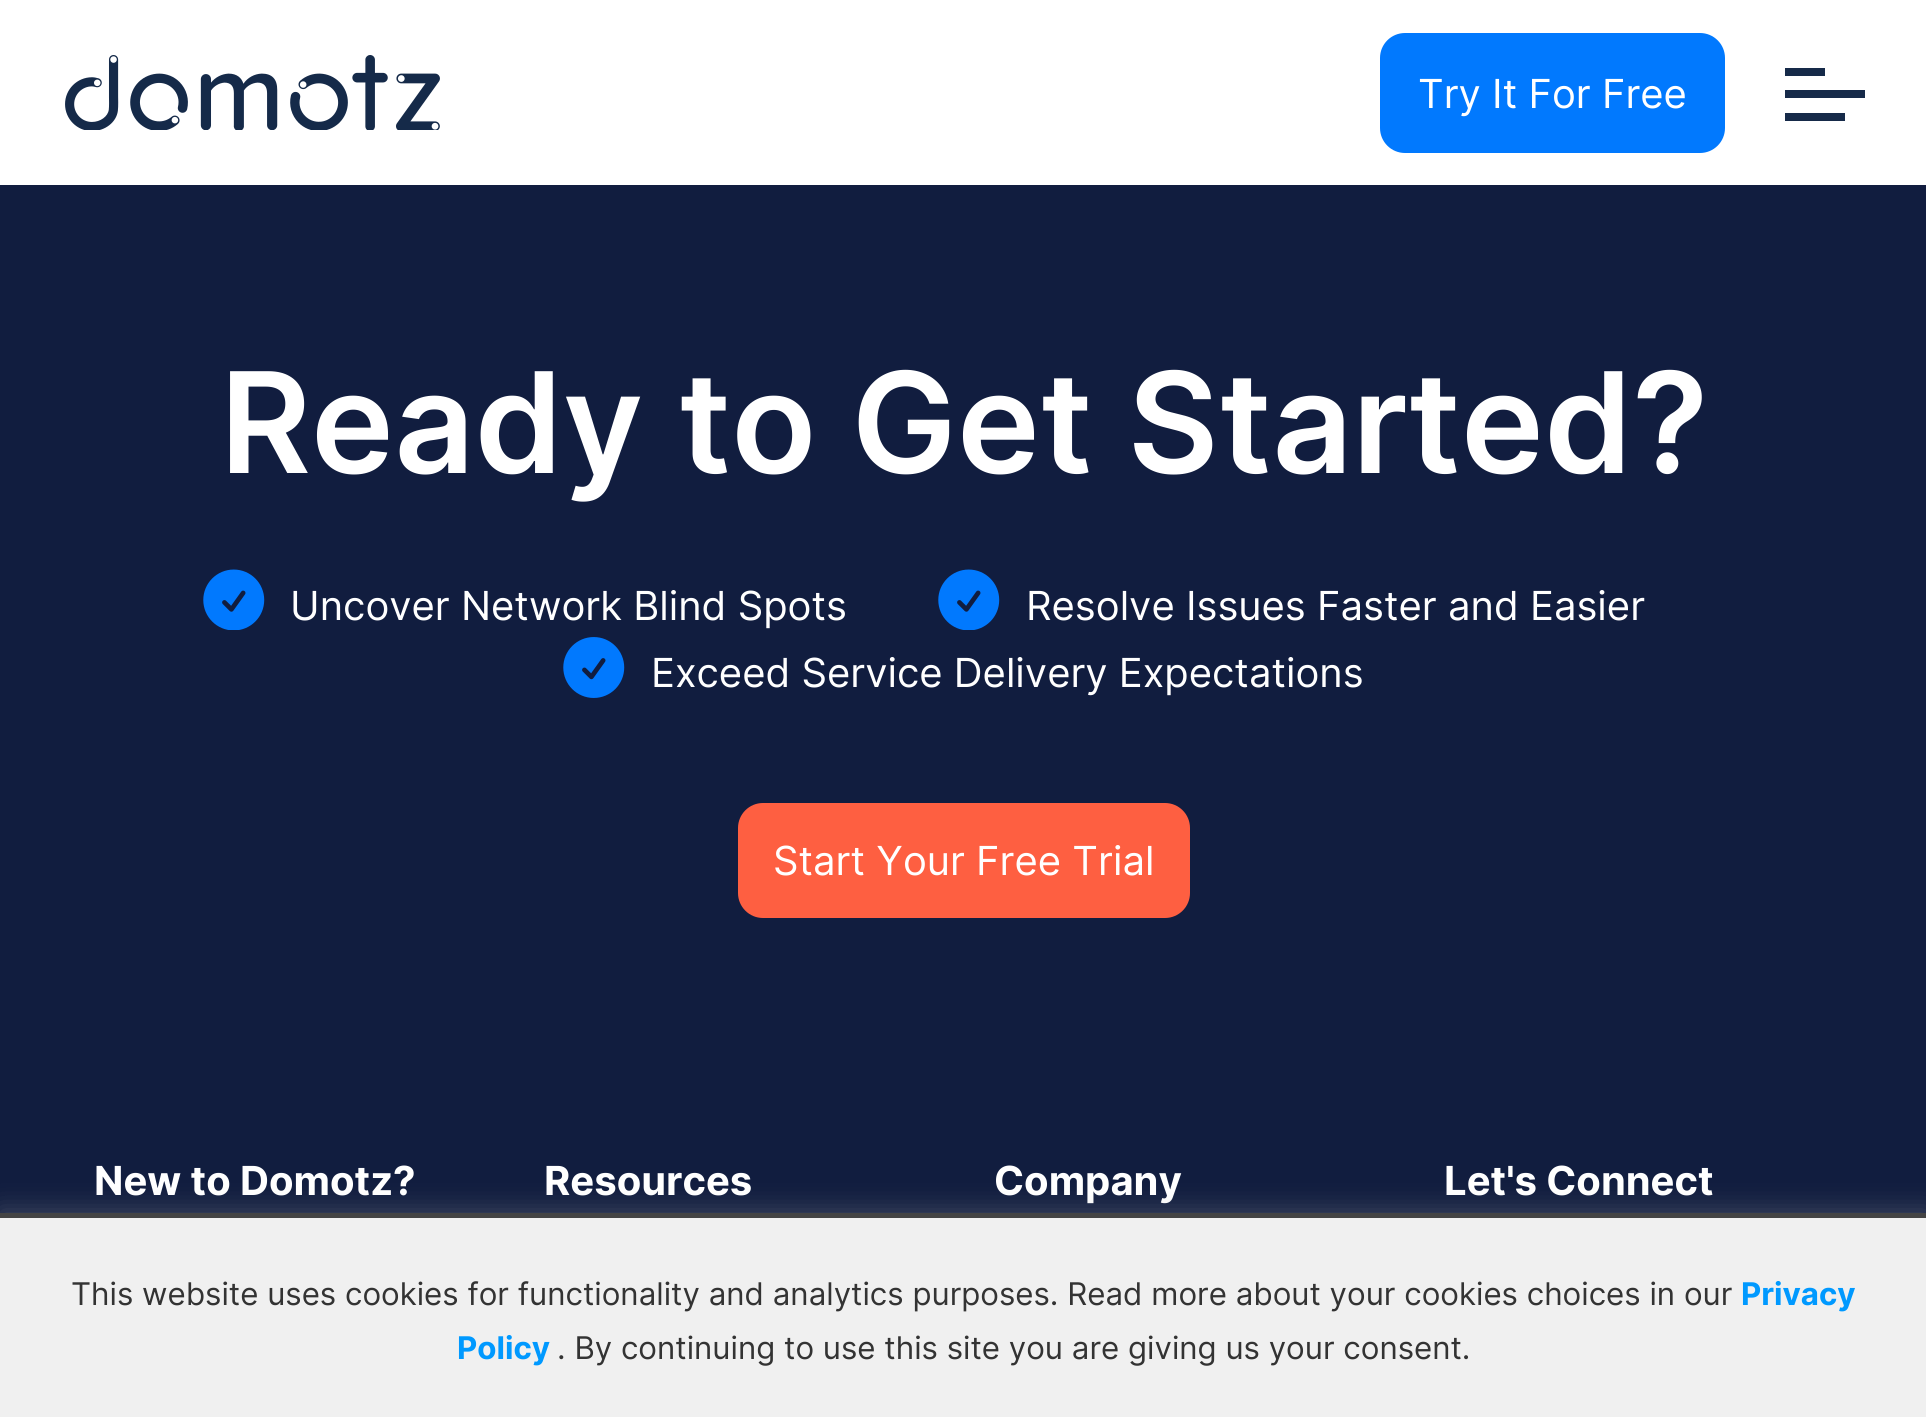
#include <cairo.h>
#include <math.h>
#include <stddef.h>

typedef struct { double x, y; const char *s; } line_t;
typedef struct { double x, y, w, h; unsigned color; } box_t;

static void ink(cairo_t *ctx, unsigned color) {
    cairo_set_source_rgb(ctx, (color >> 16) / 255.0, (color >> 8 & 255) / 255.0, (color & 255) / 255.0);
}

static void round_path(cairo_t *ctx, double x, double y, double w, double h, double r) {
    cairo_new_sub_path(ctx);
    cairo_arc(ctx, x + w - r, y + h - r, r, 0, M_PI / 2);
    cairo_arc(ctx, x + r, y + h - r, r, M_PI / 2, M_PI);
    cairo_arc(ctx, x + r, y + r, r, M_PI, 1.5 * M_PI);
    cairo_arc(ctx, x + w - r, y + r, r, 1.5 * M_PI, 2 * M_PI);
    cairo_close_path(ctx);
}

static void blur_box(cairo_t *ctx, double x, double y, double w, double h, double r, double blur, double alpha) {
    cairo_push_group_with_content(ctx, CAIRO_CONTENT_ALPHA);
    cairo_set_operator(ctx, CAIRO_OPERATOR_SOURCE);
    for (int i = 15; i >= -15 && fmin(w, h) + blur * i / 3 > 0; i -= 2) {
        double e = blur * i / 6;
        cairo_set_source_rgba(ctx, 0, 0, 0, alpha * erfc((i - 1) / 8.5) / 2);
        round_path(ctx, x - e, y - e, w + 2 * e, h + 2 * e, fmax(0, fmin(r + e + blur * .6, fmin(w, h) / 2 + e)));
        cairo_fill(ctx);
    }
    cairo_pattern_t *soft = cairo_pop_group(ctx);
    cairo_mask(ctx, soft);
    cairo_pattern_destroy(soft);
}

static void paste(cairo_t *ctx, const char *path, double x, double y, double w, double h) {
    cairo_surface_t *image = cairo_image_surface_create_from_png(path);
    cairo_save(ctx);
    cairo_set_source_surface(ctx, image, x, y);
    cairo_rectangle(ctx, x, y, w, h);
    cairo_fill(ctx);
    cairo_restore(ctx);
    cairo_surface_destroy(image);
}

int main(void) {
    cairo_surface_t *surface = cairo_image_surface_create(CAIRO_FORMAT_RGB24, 1926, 1417);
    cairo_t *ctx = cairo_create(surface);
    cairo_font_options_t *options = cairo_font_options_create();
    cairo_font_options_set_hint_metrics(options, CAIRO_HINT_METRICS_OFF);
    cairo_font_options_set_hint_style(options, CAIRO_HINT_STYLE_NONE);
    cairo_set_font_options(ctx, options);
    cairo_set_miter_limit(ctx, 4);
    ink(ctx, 0x111D3F);
    cairo_paint(ctx);
    ink(ctx, 0xFFFFFF);
    cairo_rectangle(ctx, 0, 0, 1926, 185);
    cairo_fill(ctx);
    paste(ctx, "media/1.png", 65, 55, 375, 75);
    ink(ctx, 0x0179FE);
    round_path(ctx, 1382.5, 35.5, 340, 115, 22.5);
    cairo_fill_preserve(ctx);
    cairo_set_line_width(ctx, 5);
    cairo_stroke(ctx);
    cairo_select_font_face(ctx, "Inter", CAIRO_FONT_SLANT_NORMAL, CAIRO_FONT_WEIGHT_NORMAL);
    cairo_set_font_size(ctx, 40);
    ink(ctx, 0xFFFFFF);
    cairo_move_to(ctx, 1418, 108);
    cairo_show_text(ctx, "Try It For Free");
    {
        static const box_t items[] = {
            {1785, 68, 40, 8, 0x162A49},
            {1785, 90, 80, 8, 0x162A49},
            {1785, 113, 60, 8, 0x162A49},
        };
        for (size_t i = 0; i < sizeof items / sizeof *items; i++) {
            ink(ctx, items[i].color);
            cairo_rectangle(ctx, items[i].x, items[i].y, items[i].w, items[i].h);
            cairo_fill(ctx);
        }
    }
    cairo_select_font_face(ctx, "Inter SemiBold", CAIRO_FONT_SLANT_NORMAL, CAIRO_FONT_WEIGHT_NORMAL);
    cairo_set_font_size(ctx, 140);
    ink(ctx, 0xFFFFFF);
    cairo_move_to(ctx, 220, 473);
    cairo_show_text(ctx, "Ready to Get Started?");
    paste(ctx, "media/2.png", 203, 569, 62, 61);
    cairo_select_font_face(ctx, "Inter", CAIRO_FONT_SLANT_NORMAL, CAIRO_FONT_WEIGHT_NORMAL);
    cairo_set_font_size(ctx, 40);
    cairo_move_to(ctx, 290, 620);
    cairo_show_text(ctx, "Uncover Network Blind Spots");
    paste(ctx, "media/2.png", 938, 569, 62, 61);
    cairo_move_to(ctx, 1026, 620);
    cairo_show_text(ctx, "Resolve Issues Faster and Easier");
    paste(ctx, "media/3.png", 563, 637, 62, 61);
    cairo_move_to(ctx, 651, 687);
    cairo_show_text(ctx, "Exceed Service Delivery Expectations");
    ink(ctx, 0xFE5F41);
    round_path(ctx, 738, 803, 452, 115, 25);
    cairo_fill(ctx);
    ink(ctx, 0xFFFFFF);
    cairo_move_to(ctx, 773, 875);
    cairo_show_text(ctx, "Start Your Free Trial");
    cairo_select_font_face(ctx, "Inter", CAIRO_FONT_SLANT_NORMAL, CAIRO_FONT_WEIGHT_BOLD);
    {
        static const line_t items[] = {
            {94, 1195, "New to Domotz?"},
            {544, 1195, "Resources"},
            {994, 1195, "Company"},
            {1444, 1195, "Let's Connect"},
        };
        for (size_t i = 0; i < sizeof items / sizeof *items; i++) {
            cairo_move_to(ctx, items[i].x, items[i].y);
            cairo_show_text(ctx, items[i].s);
        }
    }
    ink(ctx, 0xACABAB);
    blur_box(ctx, 0, 1210, 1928, 205, 0, 12.5, 0.3);
    ink(ctx, 0xF0F0F0);
    cairo_rectangle(ctx, 0, 1218, 1926, 199);
    cairo_fill(ctx);
    ink(ctx, 0x444444);
    cairo_rectangle(ctx, 0, 1213, 1926, 5);
    cairo_fill(ctx);
    cairo_select_font_face(ctx, "Inter", CAIRO_FONT_SLANT_NORMAL, CAIRO_FONT_WEIGHT_NORMAL);
    cairo_set_font_size(ctx, 31.25);
    ink(ctx, 0x333333);
    cairo_move_to(ctx, 71, 1305);
    cairo_show_text(ctx, "This website uses cookies for functionality and analytics purposes. Read more about your cookies choices in our");
    cairo_select_font_face(ctx, "Inter", CAIRO_FONT_SLANT_NORMAL, CAIRO_FONT_WEIGHT_BOLD);
    ink(ctx, 0x0099FF);
    cairo_move_to(ctx, 1741, 1305);
    cairo_show_text(ctx, "Privacy");
    cairo_move_to(ctx, 457, 1359);
    cairo_show_text(ctx, "Policy");
    cairo_select_font_face(ctx, "Inter", CAIRO_FONT_SLANT_NORMAL, CAIRO_FONT_WEIGHT_NORMAL);
    ink(ctx, 0x333333);
    cairo_move_to(ctx, 557, 1359);
    cairo_show_text(ctx, ". By continuing to use this site you are giving us your consent.");
    cairo_surface_write_to_png(surface, "image.png");
    cairo_font_options_destroy(options);
    cairo_destroy(ctx);
    cairo_surface_destroy(surface);
    return 0;
}
